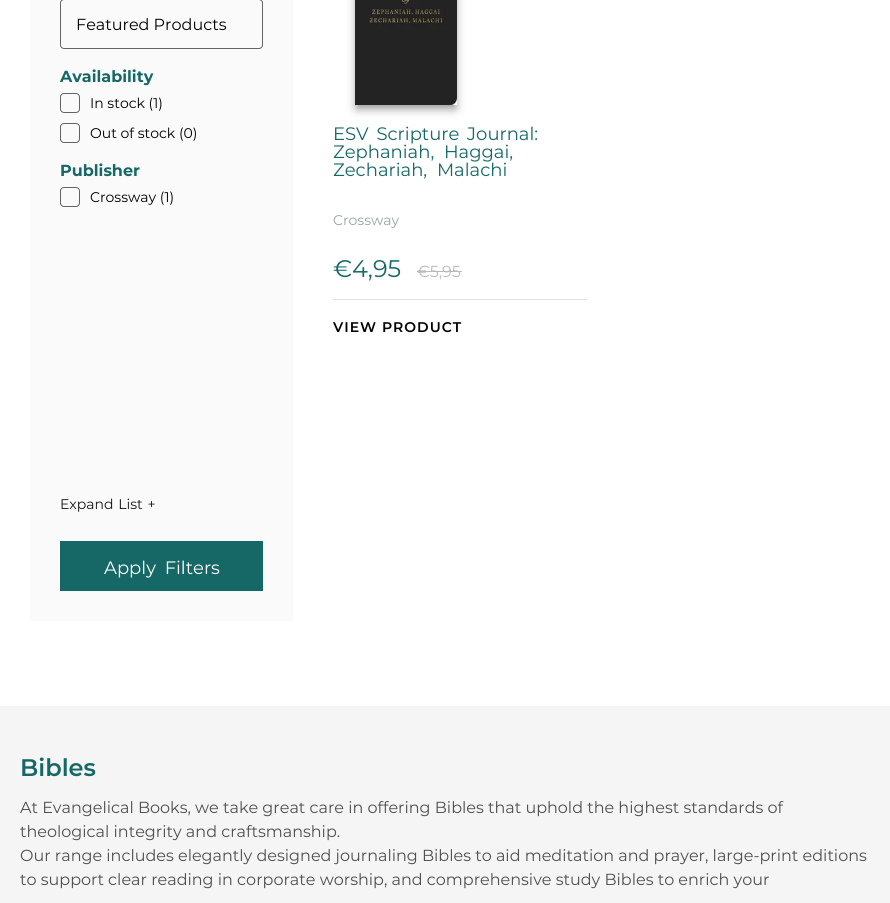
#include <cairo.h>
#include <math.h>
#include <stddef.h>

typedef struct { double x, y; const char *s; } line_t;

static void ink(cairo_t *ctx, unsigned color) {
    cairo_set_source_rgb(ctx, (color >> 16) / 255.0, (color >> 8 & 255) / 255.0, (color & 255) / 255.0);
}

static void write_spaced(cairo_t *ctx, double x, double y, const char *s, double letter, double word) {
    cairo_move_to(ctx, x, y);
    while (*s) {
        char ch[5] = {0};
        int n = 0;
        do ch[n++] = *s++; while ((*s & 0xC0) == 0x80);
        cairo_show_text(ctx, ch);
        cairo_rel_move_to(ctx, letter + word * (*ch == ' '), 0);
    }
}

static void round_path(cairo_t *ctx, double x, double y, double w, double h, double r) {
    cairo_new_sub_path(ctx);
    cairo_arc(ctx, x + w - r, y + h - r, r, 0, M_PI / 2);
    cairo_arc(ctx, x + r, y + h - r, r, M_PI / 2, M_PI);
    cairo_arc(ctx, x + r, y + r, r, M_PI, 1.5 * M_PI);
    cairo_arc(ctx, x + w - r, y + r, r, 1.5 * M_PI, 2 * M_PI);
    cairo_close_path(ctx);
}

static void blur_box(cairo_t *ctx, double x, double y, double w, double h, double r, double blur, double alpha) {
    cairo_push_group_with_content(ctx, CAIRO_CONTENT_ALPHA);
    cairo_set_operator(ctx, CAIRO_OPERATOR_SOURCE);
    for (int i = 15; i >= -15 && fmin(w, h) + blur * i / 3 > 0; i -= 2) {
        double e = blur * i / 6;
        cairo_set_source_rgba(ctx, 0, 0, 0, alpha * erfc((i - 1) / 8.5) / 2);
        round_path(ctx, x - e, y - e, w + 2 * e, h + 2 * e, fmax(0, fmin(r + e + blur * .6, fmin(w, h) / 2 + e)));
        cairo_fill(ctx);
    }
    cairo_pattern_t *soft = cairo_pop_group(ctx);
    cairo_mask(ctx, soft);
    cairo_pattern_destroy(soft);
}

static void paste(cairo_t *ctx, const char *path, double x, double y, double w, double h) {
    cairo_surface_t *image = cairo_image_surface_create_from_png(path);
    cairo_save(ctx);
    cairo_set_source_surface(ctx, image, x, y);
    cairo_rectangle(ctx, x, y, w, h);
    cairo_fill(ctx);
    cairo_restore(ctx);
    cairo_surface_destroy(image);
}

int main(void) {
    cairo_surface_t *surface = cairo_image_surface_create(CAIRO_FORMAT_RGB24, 890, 903);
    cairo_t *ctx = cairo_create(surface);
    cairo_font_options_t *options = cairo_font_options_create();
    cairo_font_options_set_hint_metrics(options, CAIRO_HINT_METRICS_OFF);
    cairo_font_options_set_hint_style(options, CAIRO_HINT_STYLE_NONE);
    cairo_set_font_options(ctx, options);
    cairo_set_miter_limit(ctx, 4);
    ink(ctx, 0xFFFFFF);
    cairo_paint(ctx);
    ink(ctx, 0xFAFAFA);
    cairo_rectangle(ctx, 30, 0, 263, 621);
    cairo_fill(ctx);
    round_path(ctx, 60.5, -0.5, 202, 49, 3.5);
    ink(ctx, 0x646464);
    cairo_set_line_width(ctx, 1);
    cairo_stroke(ctx);
    cairo_select_font_face(ctx, "Montserrat", CAIRO_FONT_SLANT_NORMAL, CAIRO_FONT_WEIGHT_NORMAL);
    cairo_set_font_size(ctx, 16);
    ink(ctx, 0x000000);
    cairo_move_to(ctx, 76, 30);
    cairo_show_text(ctx, "Featured Products");
    cairo_select_font_face(ctx, "Montserrat", CAIRO_FONT_SLANT_NORMAL, CAIRO_FONT_WEIGHT_BOLD);
    ink(ctx, 0x156866);
    cairo_move_to(ctx, 60, 82);
    cairo_show_text(ctx, "Availability");
    round_path(ctx, 60.5, 93.5, 19, 19, 3.5);
    ink(ctx, 0x646464);
    cairo_stroke(ctx);
    cairo_select_font_face(ctx, "Montserrat", CAIRO_FONT_SLANT_NORMAL, CAIRO_FONT_WEIGHT_NORMAL);
    cairo_set_font_size(ctx, 14);
    ink(ctx, 0x000000);
    cairo_move_to(ctx, 90, 108);
    cairo_show_text(ctx, "In stock (1)");
    round_path(ctx, 60.5, 123.5, 19, 19, 3.5);
    ink(ctx, 0x646464);
    cairo_stroke(ctx);
    ink(ctx, 0x000000);
    cairo_move_to(ctx, 90, 138);
    cairo_show_text(ctx, "Out of stock (0)");
    cairo_select_font_face(ctx, "Montserrat", CAIRO_FONT_SLANT_NORMAL, CAIRO_FONT_WEIGHT_BOLD);
    cairo_set_font_size(ctx, 16);
    ink(ctx, 0x156866);
    cairo_move_to(ctx, 60, 176);
    cairo_show_text(ctx, "Publisher");
    round_path(ctx, 60.5, 187.5, 19, 19, 3.5);
    ink(ctx, 0x646464);
    cairo_stroke(ctx);
    cairo_select_font_face(ctx, "Montserrat", CAIRO_FONT_SLANT_NORMAL, CAIRO_FONT_WEIGHT_NORMAL);
    cairo_set_font_size(ctx, 14);
    ink(ctx, 0x000000);
    cairo_move_to(ctx, 90, 202);
    cairo_show_text(ctx, "Crossway (1)");
    ink(ctx, 0x161616);
    write_spaced(ctx, 60, 509, "Expand List +", 0, 1);
    ink(ctx, 0x156866);
    cairo_rectangle(ctx, 60, 541, 203, 50);
    cairo_fill(ctx);
    cairo_set_font_size(ctx, 18);
    ink(ctx, 0xFFFFFF);
    write_spaced(ctx, 104, 574, "Apply Filters", 0, 4);
    ink(ctx, 0x161616);
    blur_box(ctx, 357, -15, 98, 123, 0, 5, 0.5);
    paste(ctx, "media/1.png", 355, 0, 102, 105);
    ink(ctx, 0x156866);
    write_spaced(ctx, 333, 140, "ESV Scripture Journal:", 0, 3);
    write_spaced(ctx, 333, 158, "Zephaniah, Haggai,", 0, 5);
    write_spaced(ctx, 333, 176, "Zechariah, Malachi", 0, 5);
    cairo_set_font_size(ctx, 14);
    ink(ctx, 0x94A89A);
    cairo_move_to(ctx, 333, 225);
    cairo_show_text(ctx, "Crossway");
    cairo_set_font_size(ctx, 24);
    ink(ctx, 0x156866);
    cairo_move_to(ctx, 333, 277);
    cairo_show_text(ctx, "€4,95");
    cairo_set_font_size(ctx, 16);
    ink(ctx, 0xBABABA);
    cairo_move_to(ctx, 417, 277);
    cairo_show_text(ctx, "€5,95");
    cairo_rectangle(ctx, 417, 271, 45, 1);
    cairo_fill(ctx);
    ink(ctx, 0xE0E0E0);
    cairo_rectangle(ctx, 333, 299, 254, 1);
    cairo_fill(ctx);
    cairo_select_font_face(ctx, "Montserrat SemiBold", CAIRO_FONT_SLANT_NORMAL, CAIRO_FONT_WEIGHT_NORMAL);
    cairo_set_font_size(ctx, 14);
    ink(ctx, 0x000000);
    write_spaced(ctx, 333, 332, "VIEW PRODUCT", 1, 0);
    ink(ctx, 0xF5F5F5);
    cairo_rectangle(ctx, 0, 706, 890, 197);
    cairo_fill(ctx);
    cairo_set_font_size(ctx, 24);
    ink(ctx, 0x156866);
    cairo_move_to(ctx, 20, 776);
    cairo_show_text(ctx, "Bibles");
    cairo_select_font_face(ctx, "Montserrat", CAIRO_FONT_SLANT_NORMAL, CAIRO_FONT_WEIGHT_NORMAL);
    cairo_set_font_size(ctx, 16);
    ink(ctx, 0x505050);
    {
        static const line_t items[] = {
            {20, 813, "At Evangelical Books, we take great care in offering Bibles that uphold the highest standards of"},
            {20, 837, "theological integrity and craftsmanship."},
            {20, 861, "Our range includes elegantly designed journaling Bibles to aid meditation and prayer, large-print editions"},
            {20, 885, "to support clear reading in corporate worship, and comprehensive study Bibles to enrich your"},
        };
        for (size_t i = 0; i < sizeof items / sizeof *items; i++) {
            cairo_move_to(ctx, items[i].x, items[i].y);
            cairo_show_text(ctx, items[i].s);
        }
    }
    cairo_surface_write_to_png(surface, "image.png");
    cairo_font_options_destroy(options);
    cairo_destroy(ctx);
    cairo_surface_destroy(surface);
    return 0;
}
